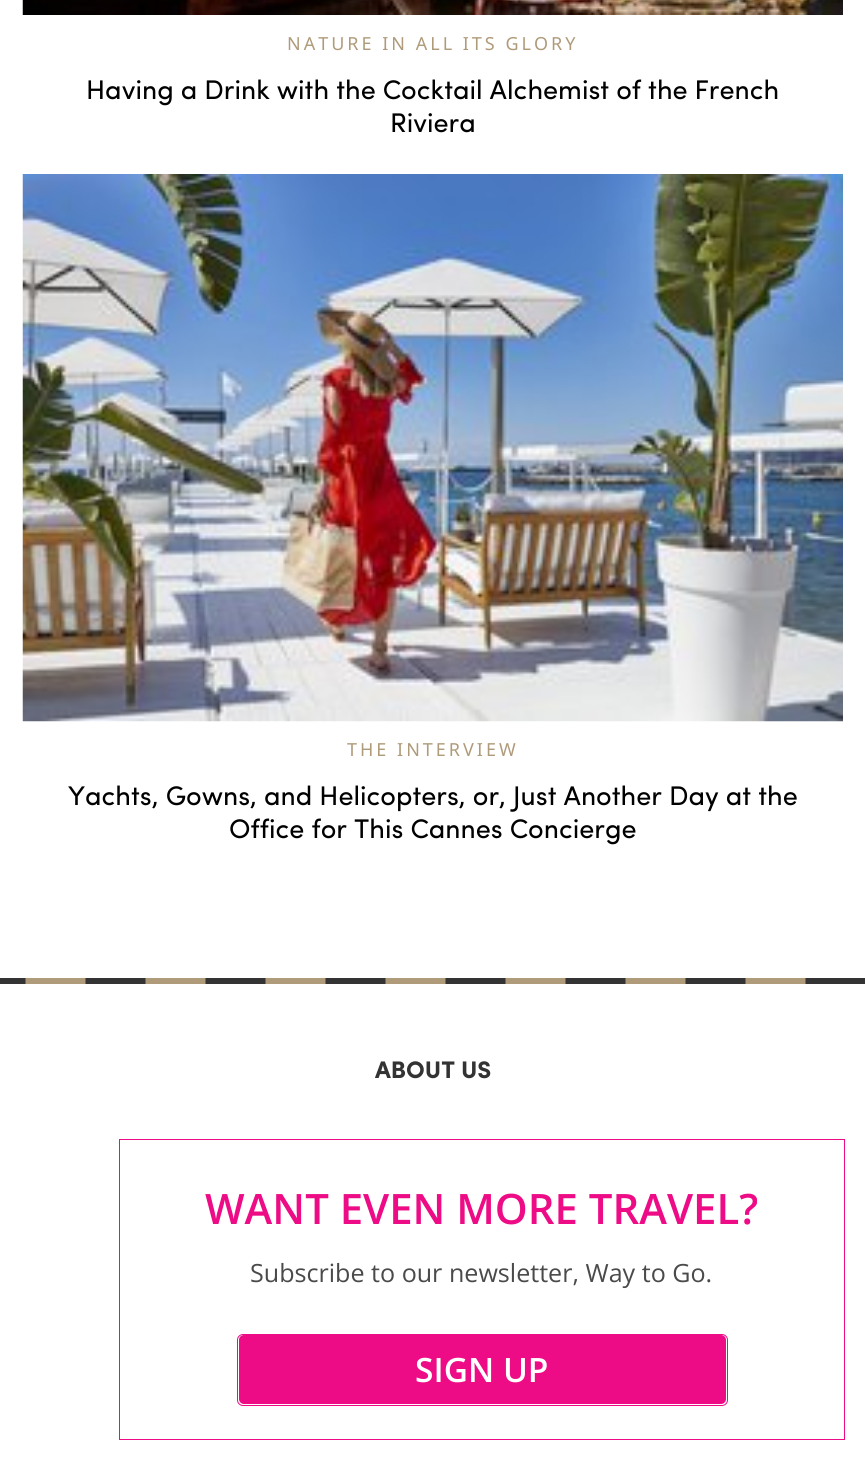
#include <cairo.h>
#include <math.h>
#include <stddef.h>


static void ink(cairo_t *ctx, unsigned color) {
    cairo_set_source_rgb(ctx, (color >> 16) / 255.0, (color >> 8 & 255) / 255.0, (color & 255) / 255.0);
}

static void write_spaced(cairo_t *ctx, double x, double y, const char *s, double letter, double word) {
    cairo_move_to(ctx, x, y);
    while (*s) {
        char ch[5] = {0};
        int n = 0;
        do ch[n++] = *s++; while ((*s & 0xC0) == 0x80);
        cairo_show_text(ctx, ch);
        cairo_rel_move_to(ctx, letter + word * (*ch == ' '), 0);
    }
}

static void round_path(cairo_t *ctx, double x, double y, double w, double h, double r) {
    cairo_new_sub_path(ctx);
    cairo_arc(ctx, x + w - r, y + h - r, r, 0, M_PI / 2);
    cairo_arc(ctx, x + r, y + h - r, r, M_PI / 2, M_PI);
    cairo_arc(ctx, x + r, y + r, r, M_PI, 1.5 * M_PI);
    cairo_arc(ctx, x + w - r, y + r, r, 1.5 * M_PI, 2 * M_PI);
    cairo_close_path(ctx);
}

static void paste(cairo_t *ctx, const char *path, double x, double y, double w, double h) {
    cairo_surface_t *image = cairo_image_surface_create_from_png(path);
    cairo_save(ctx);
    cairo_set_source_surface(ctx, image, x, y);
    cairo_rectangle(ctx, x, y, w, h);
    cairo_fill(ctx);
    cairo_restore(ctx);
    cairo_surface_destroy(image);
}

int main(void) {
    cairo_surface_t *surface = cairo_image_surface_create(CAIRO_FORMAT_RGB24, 865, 1460);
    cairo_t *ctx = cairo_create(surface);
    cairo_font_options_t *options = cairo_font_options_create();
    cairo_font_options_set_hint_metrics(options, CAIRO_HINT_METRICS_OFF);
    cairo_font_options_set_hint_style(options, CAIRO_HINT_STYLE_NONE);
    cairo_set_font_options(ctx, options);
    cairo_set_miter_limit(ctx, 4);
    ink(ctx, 0xFFFFFF);
    cairo_paint(ctx);
    paste(ctx, "media/1.png", 22, 0, 821, 15);
    cairo_select_font_face(ctx, "Noto Sans", CAIRO_FONT_SLANT_NORMAL, CAIRO_FONT_WEIGHT_NORMAL);
    cairo_set_font_size(ctx, 18);
    ink(ctx, 0xAF9B7A);
    write_spaced(ctx, 287, 50, "NATURE IN ALL ITS GLORY", 3, 0);
    cairo_select_font_face(ctx, "Sofia", CAIRO_FONT_SLANT_NORMAL, CAIRO_FONT_WEIGHT_NORMAL);
    cairo_set_font_size(ctx, 27);
    ink(ctx, 0x000000);
    cairo_move_to(ctx, 86, 99);
    cairo_show_text(ctx, "Having a Drink with the Cocktail Alchemist of the French");
    cairo_move_to(ctx, 390, 132);
    cairo_show_text(ctx, "Riviera");
    paste(ctx, "media/2.png", 22, 174, 821, 548);
    cairo_select_font_face(ctx, "Noto Sans", CAIRO_FONT_SLANT_NORMAL, CAIRO_FONT_WEIGHT_NORMAL);
    cairo_set_font_size(ctx, 18);
    ink(ctx, 0xAF9B7A);
    write_spaced(ctx, 347, 756, "THE INTERVIEW", 3, 0);
    cairo_select_font_face(ctx, "Sofia", CAIRO_FONT_SLANT_NORMAL, CAIRO_FONT_WEIGHT_NORMAL);
    cairo_set_font_size(ctx, 27);
    ink(ctx, 0x000000);
    cairo_move_to(ctx, 68, 805);
    cairo_show_text(ctx, "Yachts, Gowns, and Helicopters, or, Just Another Day at the");
    cairo_move_to(ctx, 229, 838);
    cairo_show_text(ctx, "Office for This Cannes Concierge");
    cairo_save(ctx);
    cairo_rectangle(ctx, 0, 978, 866, 6);
    cairo_clip(ctx);
    cairo_new_path(ctx);
    cairo_move_to(ctx, 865.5, 978);
    cairo_line_to(ctx, 0, 978);
    ink(ctx, 0xAF9B7A);
    cairo_set_line_width(ctx, 15);
    cairo_stroke(ctx);
    cairo_new_path(ctx);
    cairo_move_to(ctx, 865.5, 978);
    cairo_line_to(ctx, 0, 978);
    ink(ctx, 0x333333);
    cairo_set_dash(ctx, (double[]){60, 60}, 2, 0);
    cairo_stroke(ctx);
    cairo_restore(ctx);
    cairo_select_font_face(ctx, "Sofia", CAIRO_FONT_SLANT_NORMAL, CAIRO_FONT_WEIGHT_BOLD);
    cairo_set_font_size(ctx, 24);
    ink(ctx, 0x333333);
    cairo_move_to(ctx, 375, 1078);
    cairo_show_text(ctx, "ABOUT US");
    cairo_rectangle(ctx, 119.5, 1139.5, 725, 300);
    ink(ctx, 0xED0B86);
    cairo_set_line_width(ctx, 1);
    cairo_stroke(ctx);
    cairo_select_font_face(ctx, "Open Sans SemiBold", CAIRO_FONT_SLANT_NORMAL, CAIRO_FONT_WEIGHT_NORMAL);
    cairo_set_font_size(ctx, 41.9);
    cairo_move_to(ctx, 205, 1224);
    cairo_show_text(ctx, "WANT EVEN MORE TRAVEL?");
    cairo_select_font_face(ctx, "Open Sans", CAIRO_FONT_SLANT_NORMAL, CAIRO_FONT_WEIGHT_NORMAL);
    cairo_set_font_size(ctx, 25.1);
    ink(ctx, 0x4A4A4A);
    cairo_move_to(ctx, 250, 1282);
    cairo_show_text(ctx, "Subscribe to our newsletter, Way to Go.");
    round_path(ctx, 237.5, 1334.5, 490, 71, 5.5);
    ink(ctx, 0xED0B86);
    cairo_stroke(ctx);
    round_path(ctx, 239, 1335, 487, 69, 5);
    cairo_fill(ctx);
    cairo_select_font_face(ctx, "Open Sans SemiBold", CAIRO_FONT_SLANT_NORMAL, CAIRO_FONT_WEIGHT_NORMAL);
    cairo_set_font_size(ctx, 33.5);
    ink(ctx, 0xFFFFFF);
    cairo_move_to(ctx, 415, 1382);
    cairo_show_text(ctx, "SIGN UP");
    cairo_surface_write_to_png(surface, "image.png");
    cairo_font_options_destroy(options);
    cairo_destroy(ctx);
    cairo_surface_destroy(surface);
    return 0;
}
